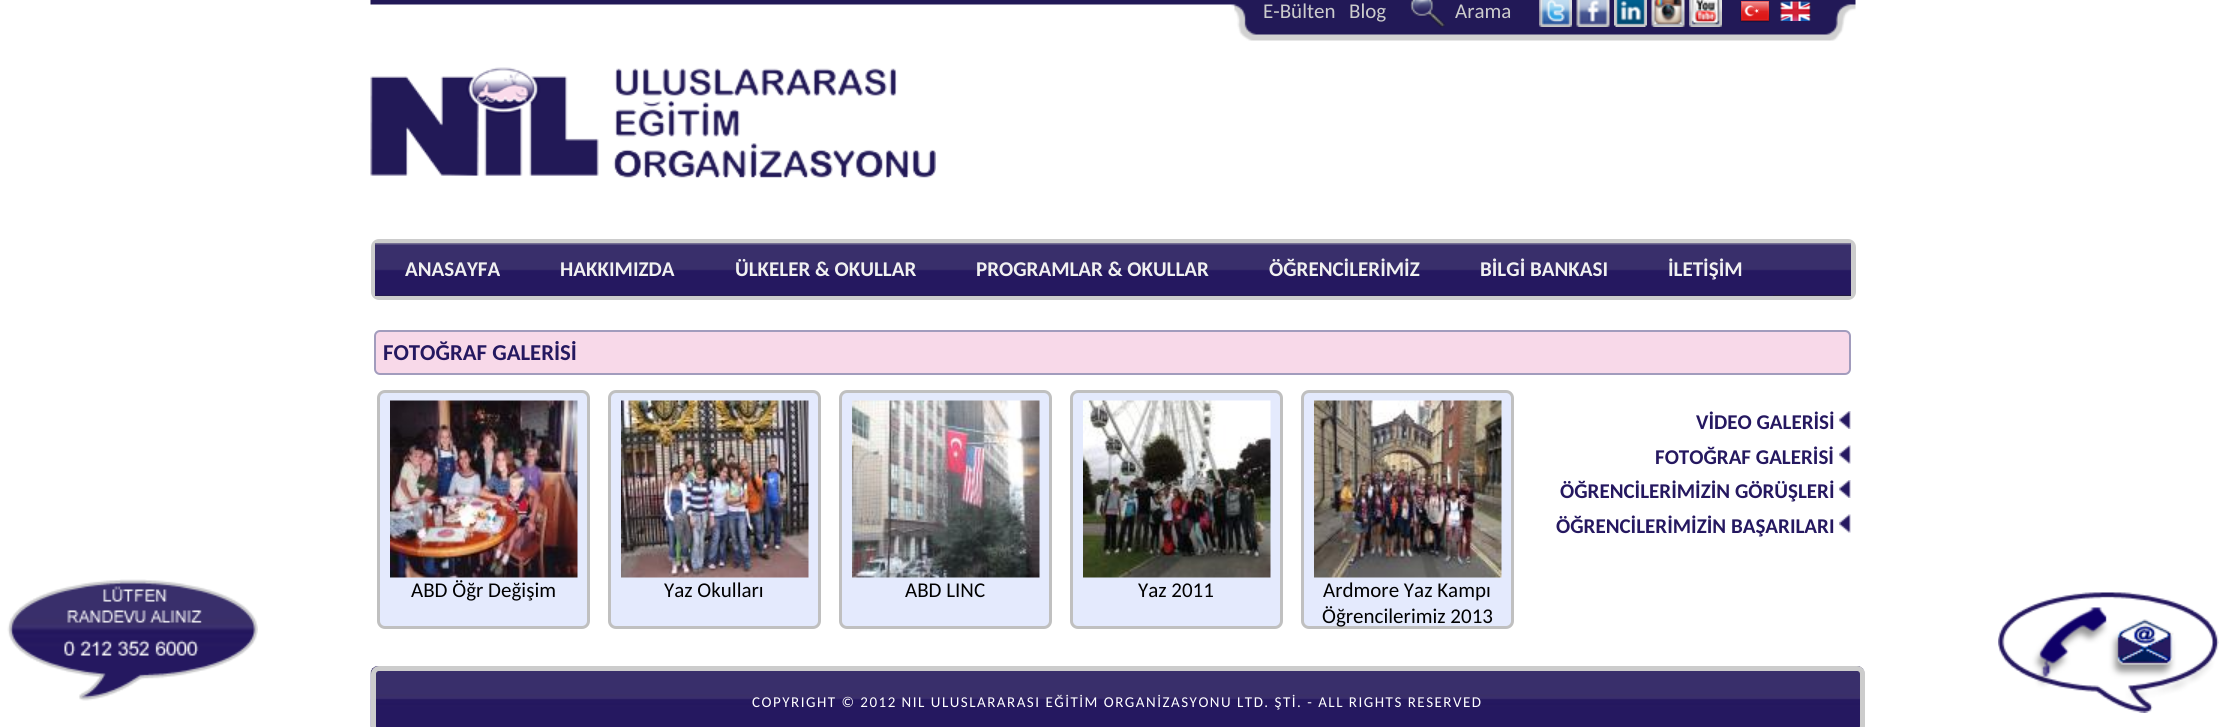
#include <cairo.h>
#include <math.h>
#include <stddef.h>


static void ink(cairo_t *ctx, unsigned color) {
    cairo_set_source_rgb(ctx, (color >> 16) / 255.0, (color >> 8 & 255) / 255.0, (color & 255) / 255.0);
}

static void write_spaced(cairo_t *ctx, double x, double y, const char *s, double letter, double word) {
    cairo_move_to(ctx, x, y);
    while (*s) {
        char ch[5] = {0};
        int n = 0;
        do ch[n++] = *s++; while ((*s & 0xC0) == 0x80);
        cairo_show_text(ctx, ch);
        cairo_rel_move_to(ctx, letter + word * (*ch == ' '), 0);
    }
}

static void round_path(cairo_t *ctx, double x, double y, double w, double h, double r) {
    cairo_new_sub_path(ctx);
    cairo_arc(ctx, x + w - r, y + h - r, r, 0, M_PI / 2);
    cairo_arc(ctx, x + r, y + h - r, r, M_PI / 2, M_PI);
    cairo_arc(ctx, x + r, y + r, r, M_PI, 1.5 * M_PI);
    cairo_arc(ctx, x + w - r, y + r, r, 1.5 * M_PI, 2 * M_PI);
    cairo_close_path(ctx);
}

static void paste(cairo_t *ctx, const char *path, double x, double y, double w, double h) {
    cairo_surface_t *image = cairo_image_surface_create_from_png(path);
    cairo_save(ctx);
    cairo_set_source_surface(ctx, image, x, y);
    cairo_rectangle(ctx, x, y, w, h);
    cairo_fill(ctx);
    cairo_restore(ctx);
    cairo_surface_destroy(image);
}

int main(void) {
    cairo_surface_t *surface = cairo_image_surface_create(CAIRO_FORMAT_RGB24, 2226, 727);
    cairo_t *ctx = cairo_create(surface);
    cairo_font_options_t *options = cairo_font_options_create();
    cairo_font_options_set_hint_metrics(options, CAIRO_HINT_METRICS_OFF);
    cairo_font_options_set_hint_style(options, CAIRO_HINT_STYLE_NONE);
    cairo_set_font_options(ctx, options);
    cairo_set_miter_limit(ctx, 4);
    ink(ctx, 0xFFFFFF);
    cairo_paint(ctx);
    paste(ctx, "media/1.png", 370, 0, 1486, 41);
    cairo_select_font_face(ctx, "Carlito", CAIRO_FONT_SLANT_NORMAL, CAIRO_FONT_WEIGHT_NORMAL);
    cairo_set_font_size(ctx, 21);
    ink(ctx, 0xCCCCCC);
    cairo_move_to(ctx, 1263, 18);
    cairo_show_text(ctx, "E-Bülten");
    cairo_move_to(ctx, 1349, 18);
    cairo_show_text(ctx, "Blog");
    paste(ctx, "media/2.png", 1410, 0, 36, 28);
    cairo_move_to(ctx, 1455, 18);
    cairo_show_text(ctx, "Arama");
    paste(ctx, "media/3.png", 1539, 0, 33, 27);
    paste(ctx, "media/4.png", 1576, 0, 34, 27);
    paste(ctx, "media/5.png", 1614, 0, 33, 27);
    paste(ctx, "media/6.png", 1651, 0, 34, 27);
    paste(ctx, "media/7.png", 1689, 0, 33, 27);
    paste(ctx, "media/8.png", 1740, 0, 30, 23);
    paste(ctx, "media/9.png", 1780, 1, 31, 20);
    paste(ctx, "media/10.png", 370, 67, 566, 111);
    round_path(ctx, 373.5, 241.5, 1480, 56, 5.5);
    cairo_set_line_width(ctx, 5);
    cairo_stroke(ctx);
    ink(ctx, 0x222222);
    cairo_rectangle(ctx, 375, 295, 1476, 1);
    cairo_fill(ctx);
    paste(ctx, "media/11.png", 375, 243, 1476, 53);
    paste(ctx, "media/12.png", 375, 295, 155, 1);
    cairo_select_font_face(ctx, "Carlito", CAIRO_FONT_SLANT_NORMAL, CAIRO_FONT_WEIGHT_BOLD);
    ink(ctx, 0xF1F1F1);
    cairo_move_to(ctx, 405, 276);
    cairo_show_text(ctx, "ANASAYFA");
    paste(ctx, "media/13.png", 529, 295, 176, 1);
    cairo_move_to(ctx, 560, 276);
    cairo_show_text(ctx, "HAKKIMIZDA");
    paste(ctx, "media/14.png", 705, 295, 242, 1);
    cairo_move_to(ctx, 735, 276);
    cairo_show_text(ctx, "ÜLKELER & OKULLAR");
    paste(ctx, "media/15.png", 946, 295, 293, 1);
    cairo_move_to(ctx, 976, 276);
    cairo_show_text(ctx, "PROGRAMLAR & OKULLAR");
    ink(ctx, 0x241A51);
    cairo_rectangle(ctx, 1239, 295, 399, 1);
    cairo_fill(ctx);
    ink(ctx, 0xF1F1F1);
    cairo_move_to(ctx, 1269, 276);
    cairo_show_text(ctx, "ÖĞRENCİLERİMİZ");
    cairo_move_to(ctx, 1480, 276);
    cairo_show_text(ctx, "BİLGİ BANKASI");
    ink(ctx, 0x241A51);
    cairo_rectangle(ctx, 1638, 295, 135, 1);
    cairo_fill(ctx);
    ink(ctx, 0xF1F1F1);
    cairo_move_to(ctx, 1668, 276);
    cairo_show_text(ctx, "İLETİŞİM");
    ink(ctx, 0xF8D9E9);
    round_path(ctx, 375, 331, 1475, 43, 5);
    cairo_fill_preserve(ctx);
    ink(ctx, 0xA29CBD);
    cairo_set_line_width(ctx, 2);
    cairo_stroke(ctx);
    cairo_set_font_size(ctx, 22.75);
    ink(ctx, 0x251860);
    cairo_move_to(ctx, 383, 360);
    cairo_show_text(ctx, "FOTOĞRAF GALERİSİ");
    cairo_set_font_size(ctx, 21);
    cairo_move_to(ctx, 1696, 429);
    cairo_show_text(ctx, "VİDEO GALERİSİ");
    paste(ctx, "media/16.png", 1839, 411, 12, 18);
    cairo_move_to(ctx, 1655, 464);
    cairo_show_text(ctx, "FOTOĞRAF GALERİSİ");
    paste(ctx, "media/17.png", 1839, 445, 12, 19);
    cairo_move_to(ctx, 1560, 498);
    cairo_show_text(ctx, "ÖĞRENCİLERİMİZİN GÖRÜŞLERİ");
    paste(ctx, "media/16.png", 1839, 480, 12, 18);
    cairo_move_to(ctx, 1556, 533);
    cairo_show_text(ctx, "ÖĞRENCİLERİMİZİN BAŞARILARI");
    paste(ctx, "media/17.png", 1839, 514, 12, 19);
    ink(ctx, 0xE4EAFD);
    round_path(ctx, 378.5, 391.5, 210, 236, 6.5);
    cairo_fill_preserve(ctx);
    ink(ctx, 0xC0C0C0);
    cairo_set_line_width(ctx, 3);
    cairo_stroke(ctx);
    paste(ctx, "media/18.png", 390, 400, 188, 178);
    cairo_select_font_face(ctx, "Carlito", CAIRO_FONT_SLANT_NORMAL, CAIRO_FONT_WEIGHT_NORMAL);
    ink(ctx, 0x000000);
    cairo_move_to(ctx, 411, 597);
    cairo_show_text(ctx, "ABD Öğr Değişim");
    ink(ctx, 0xE4EAFD);
    round_path(ctx, 609.5, 391.5, 210, 236, 6.5);
    cairo_fill_preserve(ctx);
    ink(ctx, 0xC0C0C0);
    cairo_stroke(ctx);
    paste(ctx, "media/19.png", 621, 400, 188, 178);
    ink(ctx, 0x000000);
    cairo_move_to(ctx, 664, 597);
    cairo_show_text(ctx, "Yaz Okulları");
    ink(ctx, 0xE4EAFD);
    round_path(ctx, 840.5, 391.5, 210, 236, 6.5);
    cairo_fill_preserve(ctx);
    ink(ctx, 0xC0C0C0);
    cairo_stroke(ctx);
    paste(ctx, "media/20.png", 852, 400, 188, 178);
    ink(ctx, 0x000000);
    cairo_move_to(ctx, 905, 597);
    cairo_show_text(ctx, "ABD LINC");
    ink(ctx, 0xE4EAFD);
    round_path(ctx, 1071.5, 391.5, 210, 236, 6.5);
    cairo_fill_preserve(ctx);
    ink(ctx, 0xC0C0C0);
    cairo_stroke(ctx);
    paste(ctx, "media/21.png", 1083, 400, 188, 178);
    ink(ctx, 0x000000);
    cairo_move_to(ctx, 1138, 597);
    cairo_show_text(ctx, "Yaz 2011");
    ink(ctx, 0xE4EAFD);
    round_path(ctx, 1302.5, 391.5, 210, 236, 6.5);
    cairo_fill_preserve(ctx);
    ink(ctx, 0xC0C0C0);
    cairo_stroke(ctx);
    paste(ctx, "media/22.png", 1314, 400, 188, 178);
    ink(ctx, 0x000000);
    cairo_move_to(ctx, 1323, 597);
    cairo_show_text(ctx, "Ardmore Yaz Kampı");
    cairo_move_to(ctx, 1322, 623);
    cairo_show_text(ctx, "Öğrencilerimiz 2013");
    paste(ctx, "media/23.png", 370, 666, 1495, 61);
    round_path(ctx, 373.5, 668.5, 1489, 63, 5.5);
    ink(ctx, 0xCCCCCC);
    cairo_set_line_width(ctx, 5);
    cairo_stroke(ctx);
    cairo_set_font_size(ctx, 15);
    ink(ctx, 0xFFFFFF);
    write_spaced(ctx, 752, 707, "COPYRIGHT © 2012 NIL ULUSLARARASI EĞİTİM ORGANİZASYONU LTD. ŞTİ. - ALL RIGHTS RESERVED", 1.5, 0);
    paste(ctx, "media/24.png", 7, 579, 251, 122);
    paste(ctx, "media/25.png", 1998, 592, 221, 121);
    cairo_surface_write_to_png(surface, "image.png");
    cairo_font_options_destroy(options);
    cairo_destroy(ctx);
    cairo_surface_destroy(surface);
    return 0;
}
